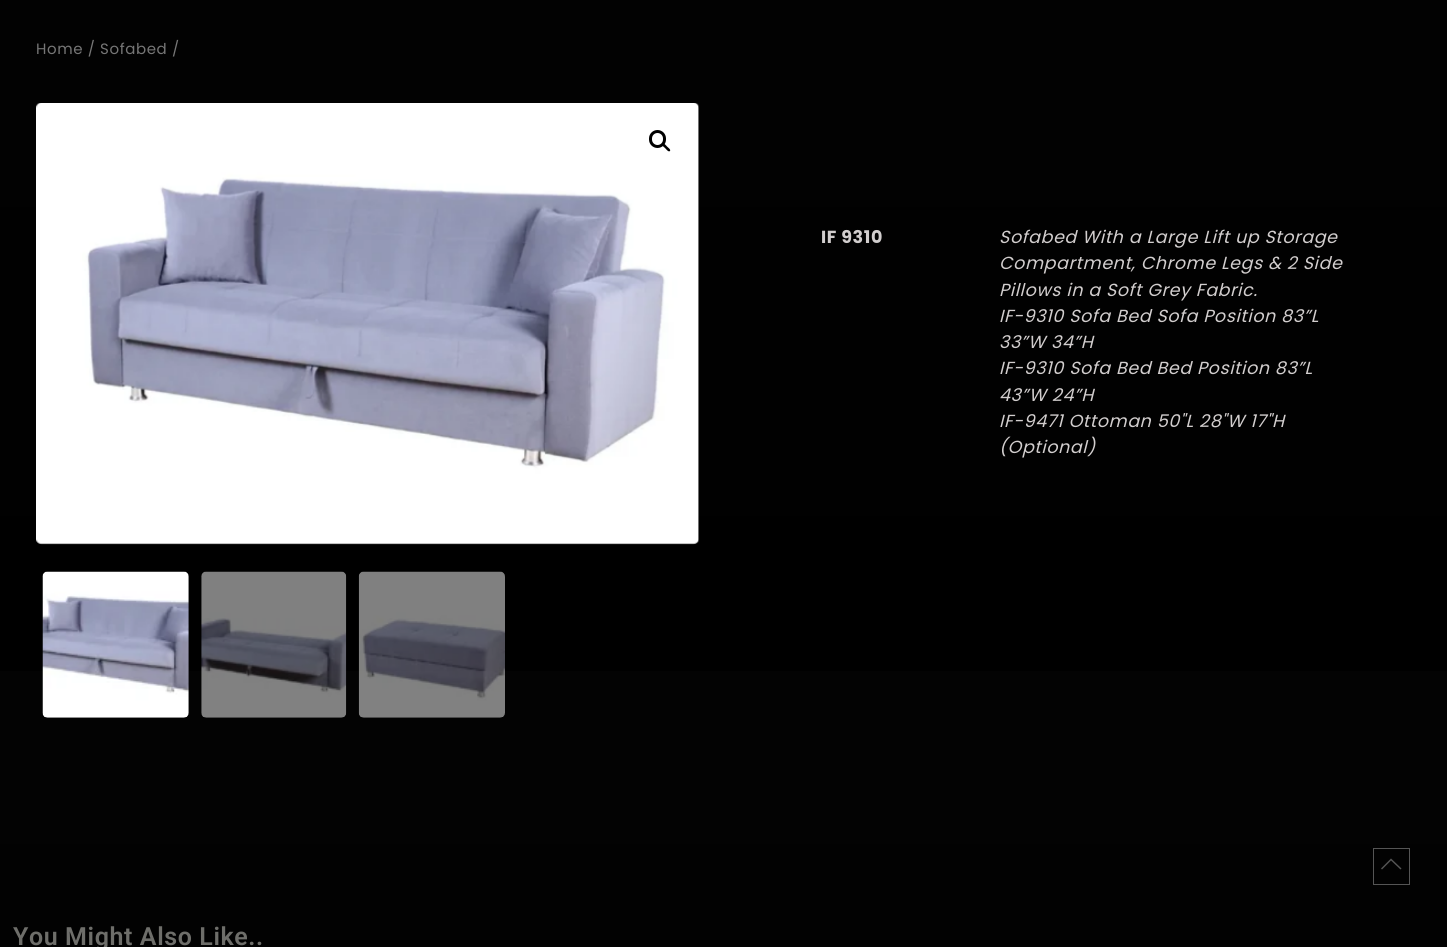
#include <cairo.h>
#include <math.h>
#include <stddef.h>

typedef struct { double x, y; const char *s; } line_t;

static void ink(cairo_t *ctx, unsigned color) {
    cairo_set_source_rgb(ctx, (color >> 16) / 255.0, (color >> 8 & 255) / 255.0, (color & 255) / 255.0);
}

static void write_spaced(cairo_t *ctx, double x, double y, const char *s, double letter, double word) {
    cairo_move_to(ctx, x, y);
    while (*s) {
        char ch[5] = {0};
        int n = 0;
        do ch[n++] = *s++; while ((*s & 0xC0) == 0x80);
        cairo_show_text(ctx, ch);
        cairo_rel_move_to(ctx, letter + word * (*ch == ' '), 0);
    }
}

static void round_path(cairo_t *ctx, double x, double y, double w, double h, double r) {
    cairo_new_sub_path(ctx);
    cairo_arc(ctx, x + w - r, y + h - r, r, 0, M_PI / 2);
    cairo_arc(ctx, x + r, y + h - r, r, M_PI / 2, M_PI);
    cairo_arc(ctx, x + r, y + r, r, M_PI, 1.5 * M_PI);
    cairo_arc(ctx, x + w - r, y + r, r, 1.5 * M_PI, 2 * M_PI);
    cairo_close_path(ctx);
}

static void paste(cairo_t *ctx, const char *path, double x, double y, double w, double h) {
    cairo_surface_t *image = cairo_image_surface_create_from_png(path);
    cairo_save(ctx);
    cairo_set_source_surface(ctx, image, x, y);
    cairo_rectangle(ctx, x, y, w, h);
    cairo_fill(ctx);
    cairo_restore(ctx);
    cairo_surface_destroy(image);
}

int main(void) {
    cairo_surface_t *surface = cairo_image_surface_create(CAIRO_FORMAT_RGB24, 1447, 947);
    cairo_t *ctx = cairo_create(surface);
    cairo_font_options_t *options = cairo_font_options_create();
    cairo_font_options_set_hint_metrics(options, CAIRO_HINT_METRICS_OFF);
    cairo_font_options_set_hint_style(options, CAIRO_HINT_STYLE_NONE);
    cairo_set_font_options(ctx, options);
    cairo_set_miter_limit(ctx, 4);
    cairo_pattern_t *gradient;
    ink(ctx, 0xFFFFFF);
    cairo_paint(ctx);
    gradient = cairo_pattern_create_linear(724, -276, 724, 671);
    cairo_pattern_add_color_stop_rgba(gradient, 0, 0.012, 0.012, 0.012, 1);
    cairo_pattern_add_color_stop_rgba(gradient, 1, 0, 0, 0, 1);
    cairo_set_source(ctx, gradient);
    cairo_pattern_destroy(gradient);
    cairo_rectangle(ctx, 0, 0, 1447, 671);
    cairo_fill(ctx);
    gradient = cairo_pattern_create_linear(724, 671, 724, 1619);
    cairo_pattern_add_color_stop_rgba(gradient, 0, 0.012, 0.012, 0.012, 1);
    cairo_pattern_add_color_stop_rgba(gradient, 1, 0, 0, 0, 1);
    cairo_set_source(ctx, gradient);
    cairo_pattern_destroy(gradient);
    cairo_rectangle(ctx, 0, 671, 1447, 276);
    cairo_fill(ctx);
    cairo_select_font_face(ctx, "Poppins", CAIRO_FONT_SLANT_NORMAL, CAIRO_FONT_WEIGHT_NORMAL);
    cairo_set_font_size(ctx, 15);
    ink(ctx, 0x767676);
    write_spaced(ctx, 36, 54, "Home / Sofabed /", 0.6, 0);
    paste(ctx, "media/1.png", 36, 103, 663, 442);
    round_path(ctx, 650.5, 131.5, 14, 15, 7);
    ink(ctx, 0x000000);
    cairo_set_line_width(ctx, 3);
    cairo_stroke(ctx);
    cairo_new_path(ctx);
    cairo_move_to(ctx, 662.5, 144);
    cairo_curve_to(ctx, 664, 142.5, 666.5, 146, 667, 146.5);
    cairo_curve_to(ctx, 668, 147.5, 671, 149.5, 670, 151);
    cairo_curve_to(ctx, 668.5, 152.5, 666, 149, 665.5, 148.5);
    cairo_curve_to(ctx, 664.5, 147.5, 661.5, 145.5, 662.5, 144);
    cairo_close_path(ctx);
    cairo_fill(ctx);
    paste(ctx, "media/2.png", 42, 571, 147, 147);
    paste(ctx, "media/3.png", 201, 571, 146, 147);
    paste(ctx, "media/4.png", 358, 571, 147, 147);
    cairo_select_font_face(ctx, "Poppins", CAIRO_FONT_SLANT_NORMAL, CAIRO_FONT_WEIGHT_BOLD);
    cairo_set_font_size(ctx, 17.5);
    ink(ctx, 0xD2CECE);
    write_spaced(ctx, 821, 243, "IF 9310", 0.6, 0);
    cairo_select_font_face(ctx, "Poppins", CAIRO_FONT_SLANT_ITALIC, CAIRO_FONT_WEIGHT_NORMAL);
    {
        static const line_t items[] = {
            {999, 243, "Sofabed With a Large Lift up Storage"},
            {999, 269, "Compartment, Chrome Legs & 2 Side"},
            {999, 296, "Pillows in a Soft Grey Fabric."},
            {999, 322, "IF-9310 Sofa Bed Sofa Position 83”L"},
            {999, 348, "33”W 34”H"},
            {999, 374, "IF-9310 Sofa Bed Bed Position 83”L"},
            {999, 401, "43”W 24”H"},
            {999, 427, "IF-9471 Ottoman 50\"L 28\"W 17\"H"},
            {999, 453, "(Optional)"},
        };
        for (size_t i = 0; i < sizeof items / sizeof *items; i++) {
            write_spaced(ctx, items[i].x, items[i].y, items[i].s, 0.6, 0);
        }
    }
    cairo_select_font_face(ctx, "Roboto SemiBold", CAIRO_FONT_SLANT_NORMAL, CAIRO_FONT_WEIGHT_NORMAL);
    cairo_set_font_size(ctx, 25);
    ink(ctx, 0x6E6E6A);
    write_spaced(ctx, 13, 945, "You Might Also Like..", 0.6, 0);
    cairo_rectangle(ctx, 1373.5, 848.5, 36, 36);
    ink(ctx, 0x555555);
    cairo_set_line_width(ctx, 1);
    cairo_stroke(ctx);
    cairo_new_path(ctx);
    cairo_move_to(ctx, 1391, 858.5);
    cairo_line_to(ctx, 1381, 868.5);
    cairo_line_to(ctx, 1382, 869.5);
    cairo_line_to(ctx, 1391, 860.5);
    cairo_line_to(ctx, 1400.5, 869.5);
    cairo_line_to(ctx, 1401.5, 868.5);
    cairo_close_path(ctx);
    cairo_fill(ctx);
    cairo_surface_write_to_png(surface, "image.png");
    cairo_font_options_destroy(options);
    cairo_destroy(ctx);
    cairo_surface_destroy(surface);
    return 0;
}
